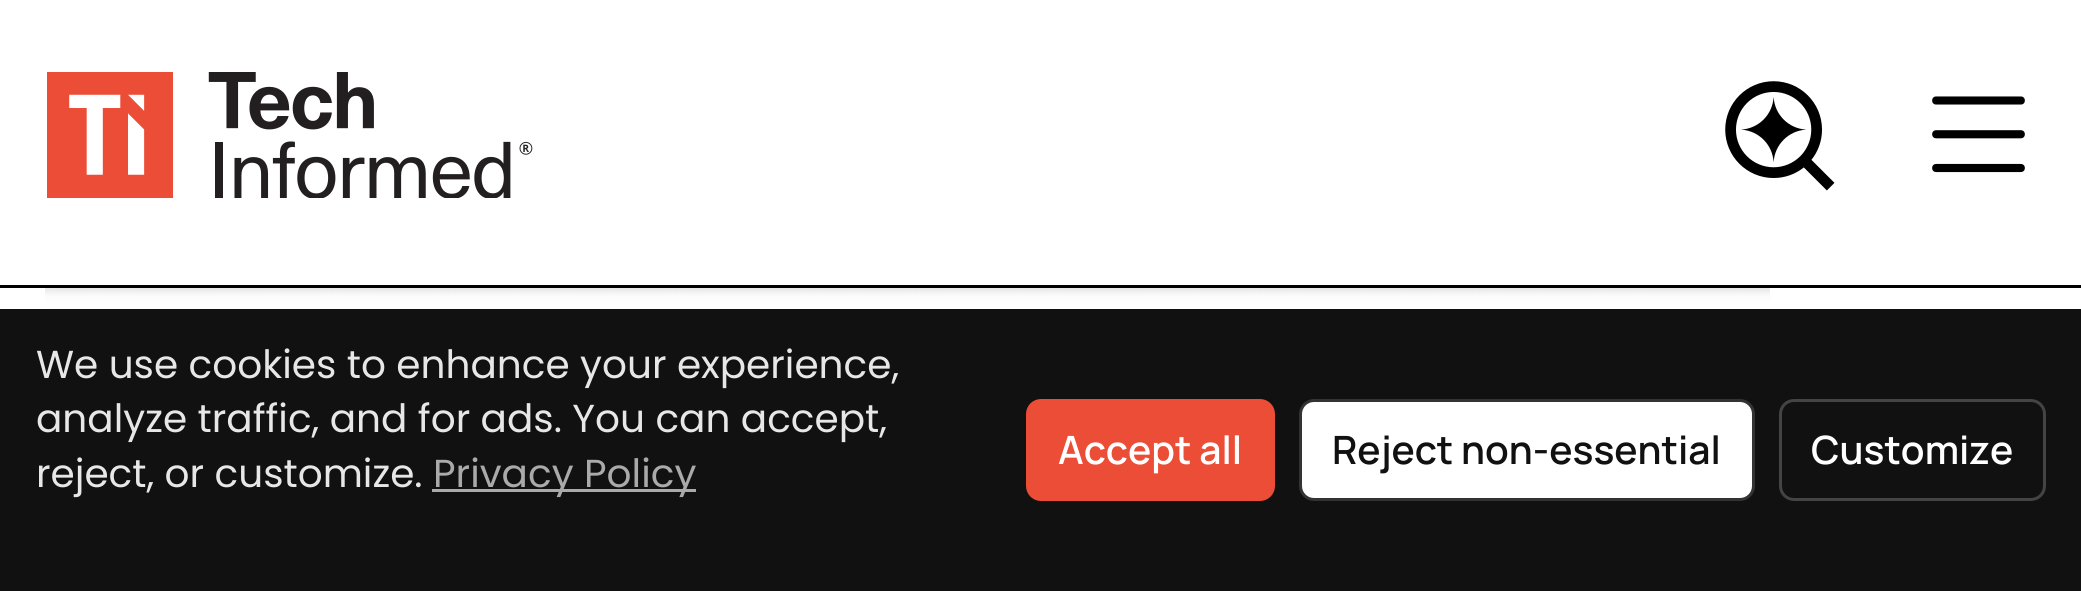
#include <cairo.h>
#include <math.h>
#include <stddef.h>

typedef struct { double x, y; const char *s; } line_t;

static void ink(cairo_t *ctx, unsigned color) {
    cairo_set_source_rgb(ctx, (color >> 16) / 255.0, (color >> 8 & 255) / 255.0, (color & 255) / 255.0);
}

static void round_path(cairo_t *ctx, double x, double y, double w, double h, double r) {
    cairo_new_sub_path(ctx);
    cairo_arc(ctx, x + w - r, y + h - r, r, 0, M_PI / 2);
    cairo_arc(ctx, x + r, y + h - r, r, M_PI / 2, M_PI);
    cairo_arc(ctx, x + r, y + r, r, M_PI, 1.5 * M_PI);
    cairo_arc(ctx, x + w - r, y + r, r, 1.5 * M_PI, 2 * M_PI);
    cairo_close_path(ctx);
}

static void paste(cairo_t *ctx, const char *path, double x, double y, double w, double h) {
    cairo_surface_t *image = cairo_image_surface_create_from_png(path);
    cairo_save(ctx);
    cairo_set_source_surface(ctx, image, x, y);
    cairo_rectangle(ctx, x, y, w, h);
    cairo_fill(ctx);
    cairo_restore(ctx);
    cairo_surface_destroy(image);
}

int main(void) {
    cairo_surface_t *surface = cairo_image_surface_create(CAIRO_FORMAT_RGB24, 2081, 591);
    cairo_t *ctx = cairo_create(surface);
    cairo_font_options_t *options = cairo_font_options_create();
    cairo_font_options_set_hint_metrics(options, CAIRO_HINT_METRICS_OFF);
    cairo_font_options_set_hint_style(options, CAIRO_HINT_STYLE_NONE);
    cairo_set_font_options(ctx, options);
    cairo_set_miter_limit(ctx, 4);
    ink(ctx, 0xFFFFFF);
    cairo_paint(ctx);
    ink(ctx, 0x000000);
    cairo_rectangle(ctx, 0, 285, 2081, 3);
    cairo_fill(ctx);
    paste(ctx, "media/1.png", 47, 72, 486, 126);
    paste(ctx, "media/2.png", 1725, 81, 110, 110);
    paste(ctx, "media/3.png", 1932, 96, 93, 77);
    paste(ctx, "media/4.png", 45, 288, 1725, 21);
    ink(ctx, 0x111111);
    cairo_rectangle(ctx, 0, 309, 2081, 282);
    cairo_fill(ctx);
    cairo_select_font_face(ctx, "Poppins", CAIRO_FONT_SLANT_NORMAL, CAIRO_FONT_WEIGHT_NORMAL);
    cairo_set_font_size(ctx, 39);
    ink(ctx, 0xE7E7E7);
    {
        static const line_t items[] = {
            {36, 378, "We use cookies to enhance your experience,"},
            {36, 432, "analyze traffic, and for ads. You can accept,"},
            {36, 487, "reject, or customize."},
        };
        for (size_t i = 0; i < sizeof items / sizeof *items; i++) {
            cairo_move_to(ctx, items[i].x, items[i].y);
            cairo_show_text(ctx, items[i].s);
        }
    }
    ink(ctx, 0xAAAAAA);
    cairo_rectangle(ctx, 432, 489, 264, 3);
    cairo_fill(ctx);
    cairo_move_to(ctx, 433, 487);
    cairo_show_text(ctx, "Privacy Policy");
    ink(ctx, 0xEB4D36);
    round_path(ctx, 1027.5, 400.5, 246, 99, 13.5);
    cairo_fill_preserve(ctx);
    cairo_set_line_width(ctx, 3);
    cairo_stroke(ctx);
    cairo_select_font_face(ctx, "Manrope SemiBold", CAIRO_FONT_SLANT_NORMAL, CAIRO_FONT_WEIGHT_NORMAL);
    ink(ctx, 0xFFFFFF);
    cairo_move_to(ctx, 1058, 464);
    cairo_show_text(ctx, "Accept all");
    round_path(ctx, 1300.5, 400.5, 453, 99, 13.5);
    cairo_fill_preserve(ctx);
    ink(ctx, 0x333333);
    cairo_stroke(ctx);
    ink(ctx, 0x111111);
    cairo_move_to(ctx, 1332, 464);
    cairo_show_text(ctx, "Reject non-essential");
    round_path(ctx, 1780.5, 400.5, 264, 99, 13.5);
    ink(ctx, 0x444444);
    cairo_stroke(ctx);
    ink(ctx, 0xFFFFFF);
    cairo_move_to(ctx, 1811, 464);
    cairo_show_text(ctx, "Customize");
    cairo_surface_write_to_png(surface, "image.png");
    cairo_font_options_destroy(options);
    cairo_destroy(ctx);
    cairo_surface_destroy(surface);
    return 0;
}
